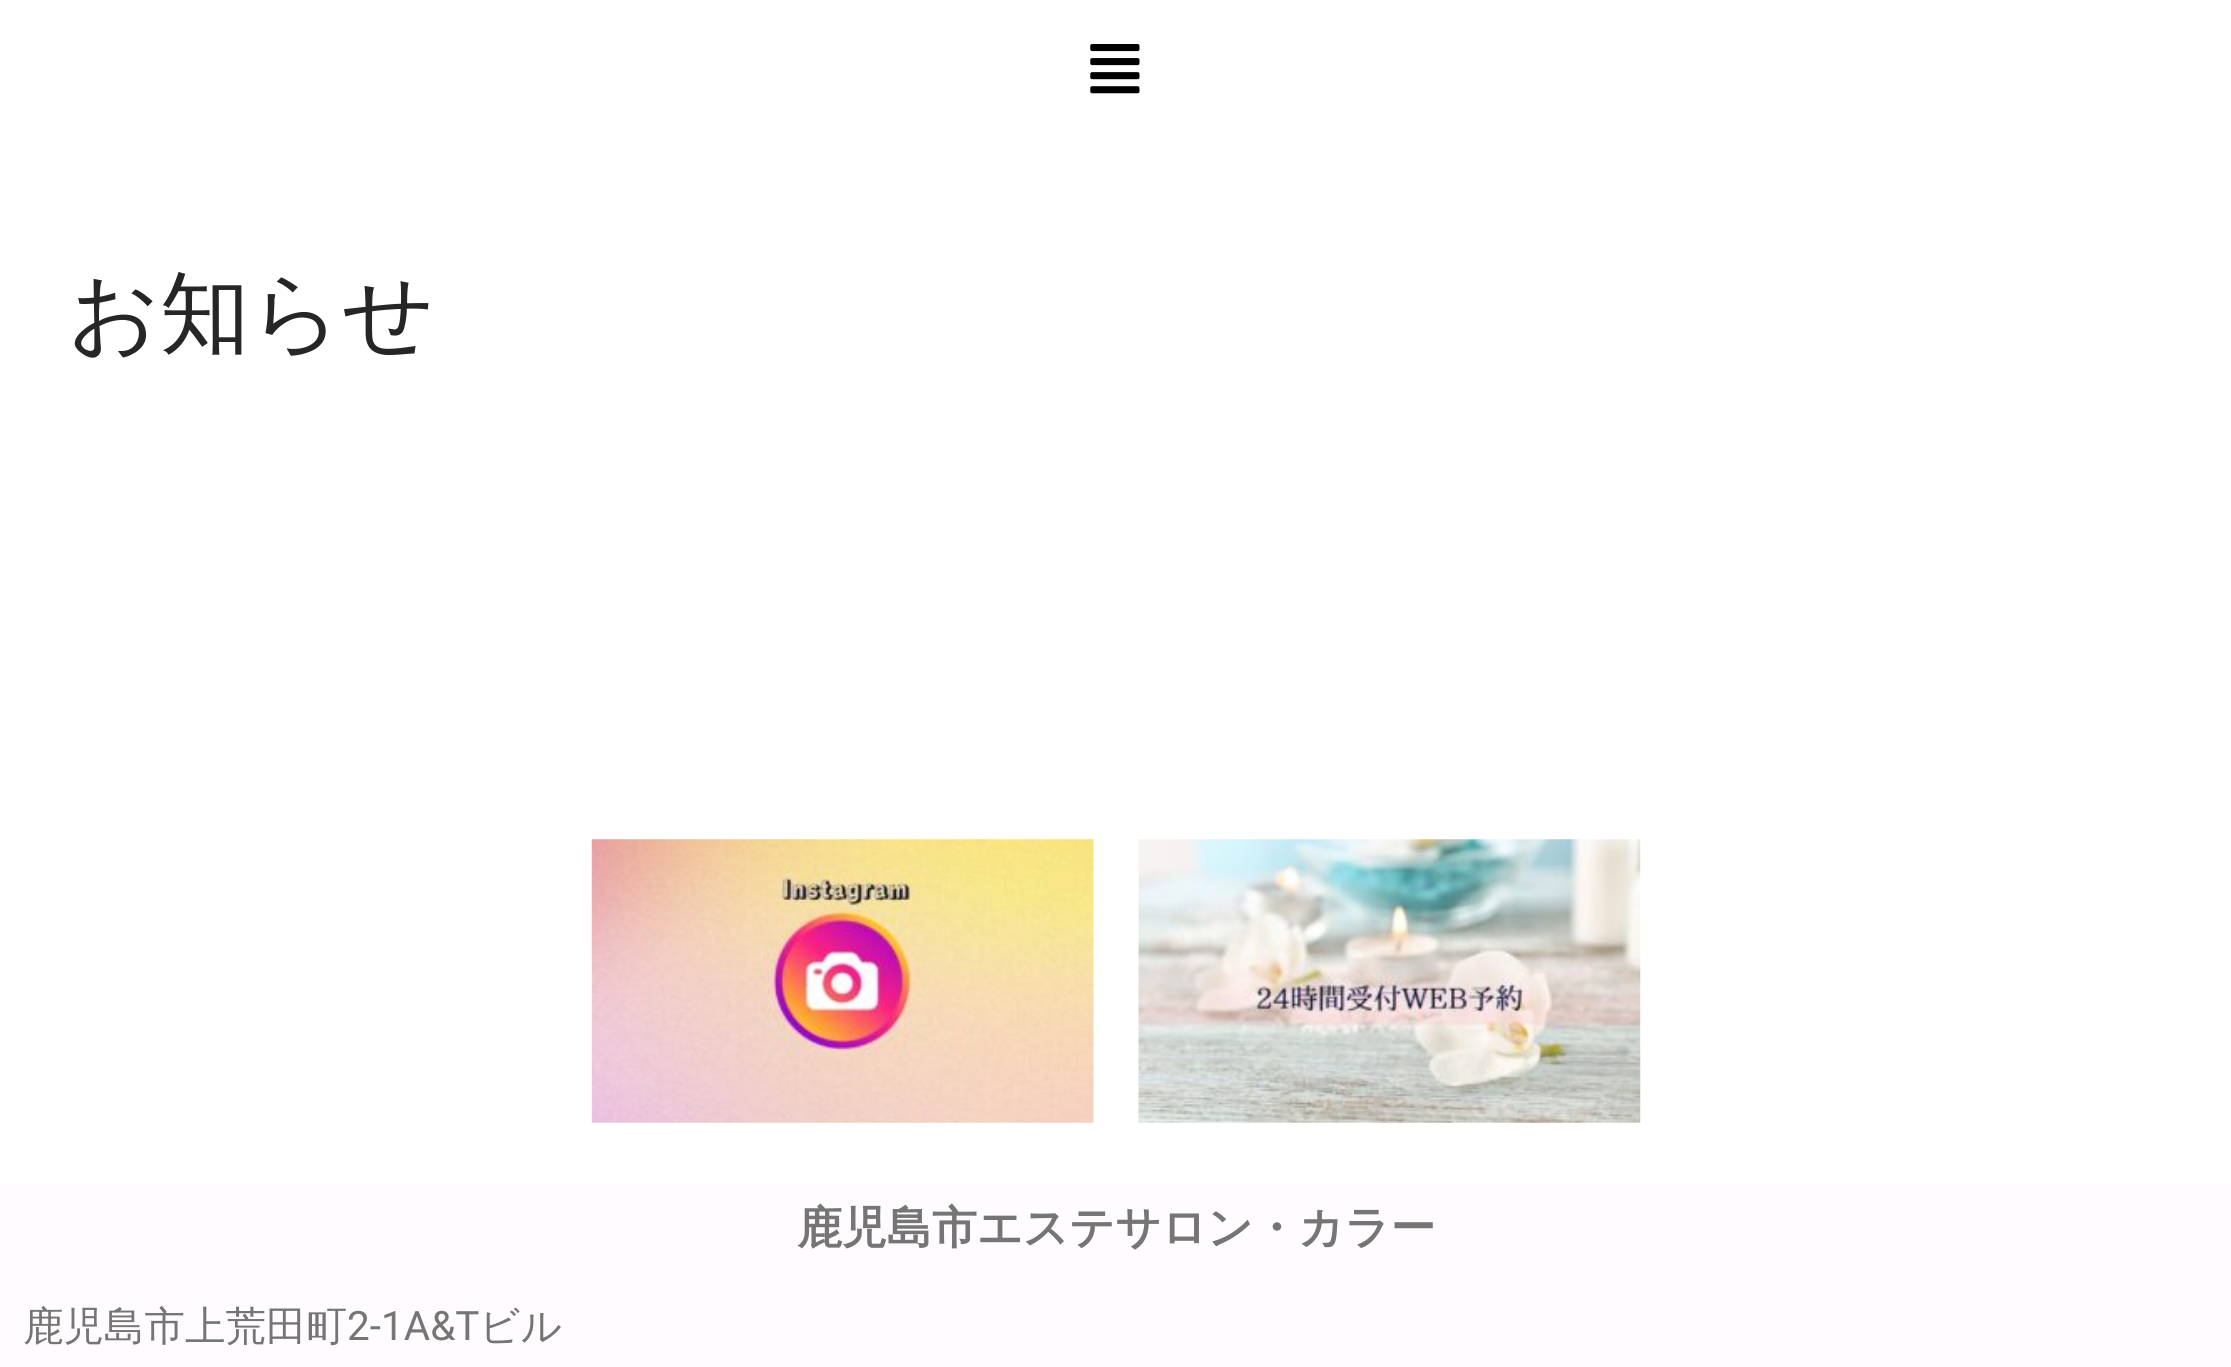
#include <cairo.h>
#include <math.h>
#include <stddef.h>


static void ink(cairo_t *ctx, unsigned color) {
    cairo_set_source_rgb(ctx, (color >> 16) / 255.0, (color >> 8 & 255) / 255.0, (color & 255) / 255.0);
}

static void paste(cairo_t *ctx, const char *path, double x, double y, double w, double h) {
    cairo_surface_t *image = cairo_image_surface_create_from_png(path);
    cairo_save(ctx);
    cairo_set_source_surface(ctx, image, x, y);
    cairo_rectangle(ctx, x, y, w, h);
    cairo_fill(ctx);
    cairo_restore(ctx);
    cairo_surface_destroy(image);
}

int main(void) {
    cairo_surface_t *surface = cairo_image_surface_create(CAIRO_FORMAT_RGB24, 2231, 1367);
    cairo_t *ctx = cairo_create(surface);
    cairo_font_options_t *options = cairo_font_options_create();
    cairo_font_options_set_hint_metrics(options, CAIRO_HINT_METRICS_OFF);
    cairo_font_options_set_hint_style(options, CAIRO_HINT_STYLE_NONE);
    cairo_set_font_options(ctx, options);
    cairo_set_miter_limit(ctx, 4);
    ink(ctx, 0xFFFFFF);
    cairo_paint(ctx);
    paste(ctx, "media/1.png", 1090, 44, 50, 50);
    cairo_select_font_face(ctx, "WenQuanYi Zen Hei Medium", CAIRO_FONT_SLANT_NORMAL, CAIRO_FONT_WEIGHT_NORMAL);
    cairo_set_font_size(ctx, 90);
    ink(ctx, 0x262626);
    cairo_move_to(ctx, 68, 344);
    cairo_show_text(ctx, "お知らせ");
    paste(ctx, "media/2.png", 591, 839, 503, 284);
    paste(ctx, "media/3.png", 1138, 839, 503, 284);
    ink(ctx, 0xFFFBFF);
    cairo_rectangle(ctx, 0, 1184, 2231, 183);
    cairo_fill(ctx);
    cairo_select_font_face(ctx, "WenQuanYi Zen Hei", CAIRO_FONT_SLANT_NORMAL, CAIRO_FONT_WEIGHT_BOLD);
    cairo_set_font_size(ctx, 45);
    ink(ctx, 0x757575);
    cairo_move_to(ctx, 797, 1243);
    cairo_show_text(ctx, "鹿児島市エステサロン・カラー");
    cairo_select_font_face(ctx, "WenQuanYi Zen Hei Medium", CAIRO_FONT_SLANT_NORMAL, CAIRO_FONT_WEIGHT_NORMAL);
    cairo_set_font_size(ctx, 40.5);
    cairo_move_to(ctx, 23, 1340);
    cairo_show_text(ctx, "鹿児島市上荒田町");
    cairo_select_font_face(ctx, "Roboto", CAIRO_FONT_SLANT_NORMAL, CAIRO_FONT_WEIGHT_NORMAL);
    cairo_move_to(ctx, 347, 1340);
    cairo_show_text(ctx, "2-1A&T");
    cairo_select_font_face(ctx, "WenQuanYi Zen Hei Medium", CAIRO_FONT_SLANT_NORMAL, CAIRO_FONT_WEIGHT_NORMAL);
    cairo_move_to(ctx, 479, 1340);
    cairo_show_text(ctx, "ビル");
    cairo_surface_write_to_png(surface, "image.png");
    cairo_font_options_destroy(options);
    cairo_destroy(ctx);
    cairo_surface_destroy(surface);
    return 0;
}
